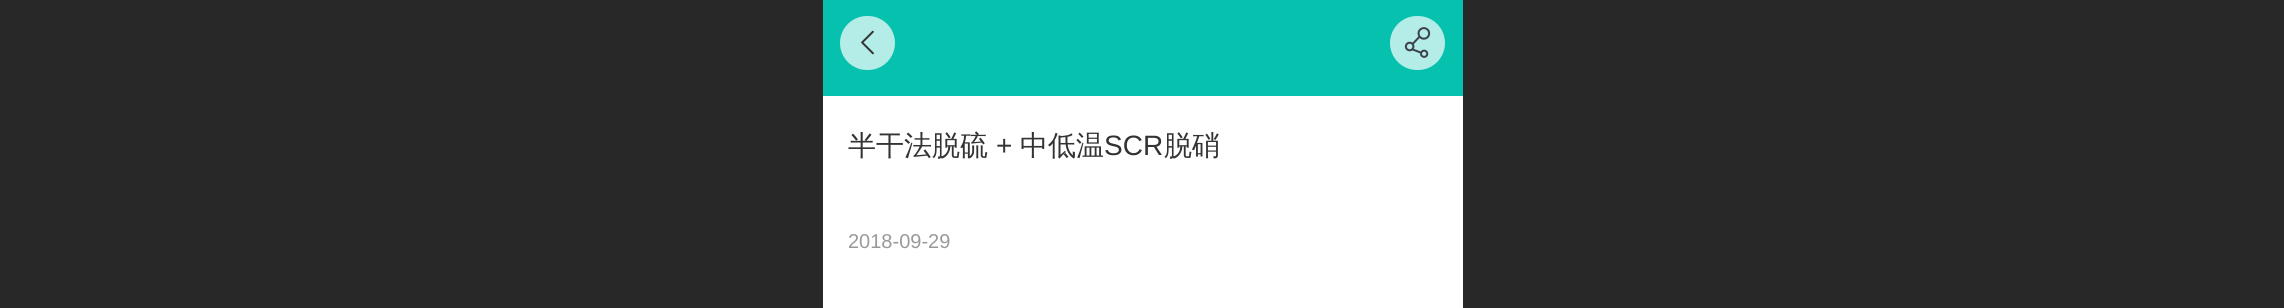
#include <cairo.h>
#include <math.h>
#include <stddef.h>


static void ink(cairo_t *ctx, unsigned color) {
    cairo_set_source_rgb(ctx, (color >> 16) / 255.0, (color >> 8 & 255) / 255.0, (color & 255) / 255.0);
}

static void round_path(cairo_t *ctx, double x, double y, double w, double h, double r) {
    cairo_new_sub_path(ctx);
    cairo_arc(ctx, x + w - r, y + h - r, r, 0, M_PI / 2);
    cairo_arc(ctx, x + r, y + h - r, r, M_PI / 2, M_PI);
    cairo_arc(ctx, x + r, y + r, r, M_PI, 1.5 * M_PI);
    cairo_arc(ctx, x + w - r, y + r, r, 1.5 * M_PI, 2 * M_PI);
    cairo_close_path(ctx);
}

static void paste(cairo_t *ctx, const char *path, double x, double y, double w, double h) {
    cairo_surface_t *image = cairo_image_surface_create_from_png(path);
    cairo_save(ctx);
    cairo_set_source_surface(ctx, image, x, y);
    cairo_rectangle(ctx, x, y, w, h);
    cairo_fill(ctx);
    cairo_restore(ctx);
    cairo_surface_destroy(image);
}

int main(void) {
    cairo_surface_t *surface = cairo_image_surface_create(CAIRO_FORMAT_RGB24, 2284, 308);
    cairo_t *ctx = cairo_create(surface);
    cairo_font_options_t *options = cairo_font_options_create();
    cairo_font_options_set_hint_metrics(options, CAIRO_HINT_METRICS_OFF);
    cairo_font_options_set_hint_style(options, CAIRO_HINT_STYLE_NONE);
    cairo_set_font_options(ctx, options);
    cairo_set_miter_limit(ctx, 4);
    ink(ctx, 0xFFFFFF);
    cairo_paint(ctx);
    ink(ctx, 0x282828);
    cairo_rectangle(ctx, 0, 0, 823, 308);
    cairo_fill(ctx);
    ink(ctx, 0x06C1AE);
    cairo_rectangle(ctx, 823, 0, 640, 96);
    cairo_fill(ctx);
    ink(ctx, 0xB4ECE7);
    round_path(ctx, 840, 16, 55, 54, 27);
    cairo_fill(ctx);
    paste(ctx, "media/1.png", 861, 30, 13, 25);
    round_path(ctx, 1390, 16, 55, 54, 27);
    cairo_fill(ctx);
    paste(ctx, "media/2.png", 1404, 27, 27, 31);
    cairo_select_font_face(ctx, "WenQuanYi Zen Hei Medium", CAIRO_FONT_SLANT_NORMAL, CAIRO_FONT_WEIGHT_NORMAL);
    cairo_set_font_size(ctx, 28);
    ink(ctx, 0x333333);
    cairo_move_to(ctx, 848, 155);
    cairo_show_text(ctx, "半干法脱硫");
    cairo_select_font_face(ctx, "Liberation Sans", CAIRO_FONT_SLANT_NORMAL, CAIRO_FONT_WEIGHT_NORMAL);
    cairo_move_to(ctx, 996, 155);
    cairo_show_text(ctx, "+");
    cairo_select_font_face(ctx, "WenQuanYi Zen Hei Medium", CAIRO_FONT_SLANT_NORMAL, CAIRO_FONT_WEIGHT_NORMAL);
    cairo_move_to(ctx, 1020, 155);
    cairo_show_text(ctx, "中低温");
    cairo_select_font_face(ctx, "Liberation Sans", CAIRO_FONT_SLANT_NORMAL, CAIRO_FONT_WEIGHT_NORMAL);
    cairo_move_to(ctx, 1104, 155);
    cairo_show_text(ctx, "SCR");
    cairo_select_font_face(ctx, "WenQuanYi Zen Hei Medium", CAIRO_FONT_SLANT_NORMAL, CAIRO_FONT_WEIGHT_NORMAL);
    cairo_move_to(ctx, 1164, 155);
    cairo_show_text(ctx, "脱硝");
    cairo_select_font_face(ctx, "Liberation Sans", CAIRO_FONT_SLANT_NORMAL, CAIRO_FONT_WEIGHT_NORMAL);
    cairo_set_font_size(ctx, 20);
    ink(ctx, 0x999999);
    cairo_move_to(ctx, 848, 248);
    cairo_show_text(ctx, "2018-09-29");
    ink(ctx, 0x282828);
    cairo_rectangle(ctx, 1463, 0, 821, 308);
    cairo_fill(ctx);
    cairo_surface_write_to_png(surface, "image.png");
    cairo_font_options_destroy(options);
    cairo_destroy(ctx);
    cairo_surface_destroy(surface);
    return 0;
}
